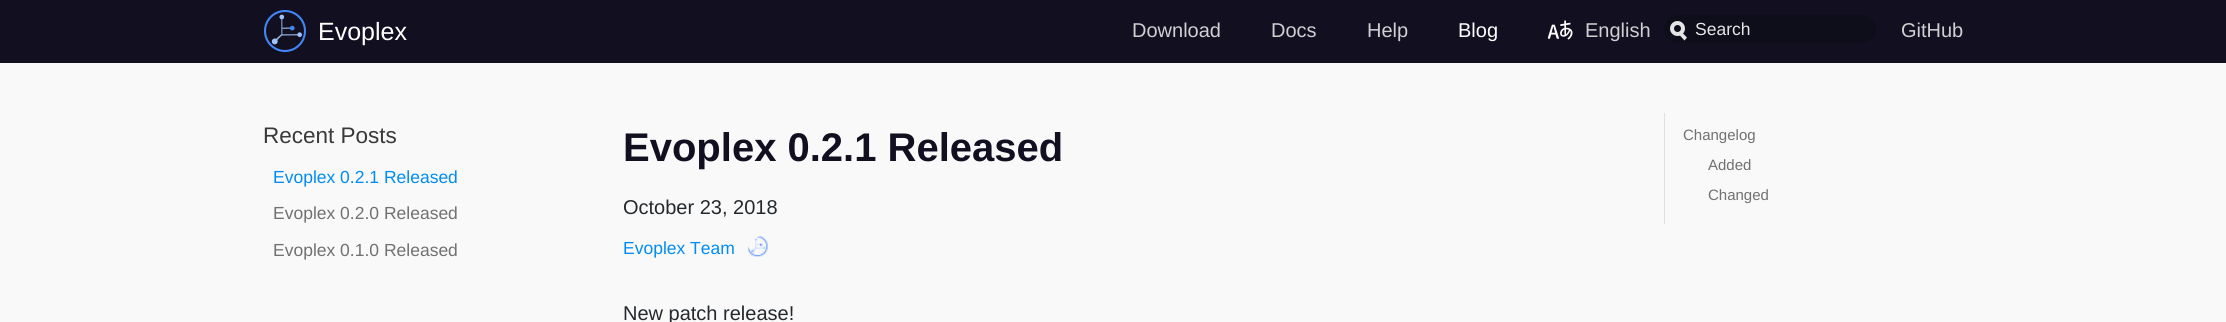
#include <cairo.h>
#include <math.h>
#include <stddef.h>

typedef struct { double x, y; const char *s; } line_t;

static void ink(cairo_t *ctx, unsigned color) {
    cairo_set_source_rgb(ctx, (color >> 16) / 255.0, (color >> 8 & 255) / 255.0, (color & 255) / 255.0);
}

static void round_path(cairo_t *ctx, double x, double y, double w, double h, double r) {
    cairo_new_sub_path(ctx);
    cairo_arc(ctx, x + w - r, y + h - r, r, 0, M_PI / 2);
    cairo_arc(ctx, x + r, y + h - r, r, M_PI / 2, M_PI);
    cairo_arc(ctx, x + r, y + r, r, M_PI, 1.5 * M_PI);
    cairo_arc(ctx, x + w - r, y + r, r, 1.5 * M_PI, 2 * M_PI);
    cairo_close_path(ctx);
}

static void paste(cairo_t *ctx, const char *path, double x, double y, double w, double h) {
    cairo_surface_t *image = cairo_image_surface_create_from_png(path);
    cairo_save(ctx);
    cairo_set_source_surface(ctx, image, x, y);
    cairo_rectangle(ctx, x, y, w, h);
    cairo_fill(ctx);
    cairo_restore(ctx);
    cairo_surface_destroy(image);
}

int main(void) {
    cairo_surface_t *surface = cairo_image_surface_create(CAIRO_FORMAT_RGB24, 2226, 322);
    cairo_t *ctx = cairo_create(surface);
    cairo_font_options_t *options = cairo_font_options_create();
    cairo_font_options_set_hint_metrics(options, CAIRO_HINT_METRICS_OFF);
    cairo_font_options_set_hint_style(options, CAIRO_HINT_STYLE_NONE);
    cairo_set_font_options(ctx, options);
    cairo_set_miter_limit(ctx, 4);
    ink(ctx, 0xF9F9F9);
    cairo_paint(ctx);
    ink(ctx, 0x121020);
    cairo_rectangle(ctx, 0, 0, 2226, 63);
    cairo_fill(ctx);
    paste(ctx, "media/1.png", 264, 10, 42, 43);
    cairo_select_font_face(ctx, "Liberation Sans", CAIRO_FONT_SLANT_NORMAL, CAIRO_FONT_WEIGHT_NORMAL);
    cairo_set_font_size(ctx, 25);
    ink(ctx, 0xFFFFFF);
    cairo_move_to(ctx, 318, 40);
    cairo_show_text(ctx, "Evoplex");
    cairo_set_font_size(ctx, 20);
    ink(ctx, 0xD0CFD2);
    {
        static const line_t items[] = {
            {1132, 37, "Download"},
            {1271, 37, "Docs"},
            {1367, 37, "Help"},
        };
        for (size_t i = 0; i < sizeof items / sizeof *items; i++) {
            cairo_move_to(ctx, items[i].x, items[i].y);
            cairo_show_text(ctx, items[i].s);
        }
    }
    ink(ctx, 0xFFFFFF);
    cairo_move_to(ctx, 1458, 37);
    cairo_show_text(ctx, "Blog");
    paste(ctx, "media/2.png", 1548, 20, 25, 20);
    ink(ctx, 0xD0CFD2);
    cairo_move_to(ctx, 1585, 37);
    cairo_show_text(ctx, "English");
    ink(ctx, 0x0E0D1A);
    round_path(ctx, 1664, 15, 212, 28, 14);
    cairo_fill(ctx);
    cairo_arc(ctx, 1677.5, 28.5, 5.5, 0, 2 * M_PI);
    ink(ctx, 0xE5E5E5);
    cairo_set_line_width(ctx, 4);
    cairo_stroke(ctx);
    cairo_set_font_size(ctx, 17.5);
    cairo_move_to(ctx, 1695, 35);
    cairo_show_text(ctx, "Search");
    cairo_new_path(ctx);
    cairo_move_to(ctx, 1678.5, 34);
    cairo_line_to(ctx, 1681, 31.5);
    cairo_line_to(ctx, 1687, 37.5);
    cairo_line_to(ctx, 1684.5, 40.5);
    cairo_close_path(ctx);
    cairo_fill(ctx);
    cairo_set_font_size(ctx, 20);
    ink(ctx, 0xD0CFD2);
    cairo_move_to(ctx, 1901, 37);
    cairo_show_text(ctx, "GitHub");
    cairo_set_font_size(ctx, 22.5);
    ink(ctx, 0x393939);
    cairo_move_to(ctx, 263, 143);
    cairo_show_text(ctx, "Recent Posts");
    cairo_set_font_size(ctx, 17.5);
    ink(ctx, 0x008CF2);
    cairo_move_to(ctx, 273, 183);
    cairo_show_text(ctx, "Evoplex 0.2.1 Released");
    ink(ctx, 0x717171);
    cairo_move_to(ctx, 273, 219);
    cairo_show_text(ctx, "Evoplex 0.2.0 Released");
    cairo_move_to(ctx, 273, 256);
    cairo_show_text(ctx, "Evoplex 0.1.0 Released");
    cairo_select_font_face(ctx, "Liberation Sans", CAIRO_FONT_SLANT_NORMAL, CAIRO_FONT_WEIGHT_BOLD);
    cairo_set_font_size(ctx, 40);
    ink(ctx, 0x121020);
    cairo_move_to(ctx, 623, 161);
    cairo_show_text(ctx, "Evoplex 0.2.1 Released");
    cairo_select_font_face(ctx, "Liberation Sans", CAIRO_FONT_SLANT_NORMAL, CAIRO_FONT_WEIGHT_NORMAL);
    cairo_set_font_size(ctx, 20);
    ink(ctx, 0x24292E);
    cairo_move_to(ctx, 623, 214);
    cairo_show_text(ctx, "October 23, 2018");
    cairo_set_font_size(ctx, 17.5);
    ink(ctx, 0x008CF2);
    cairo_move_to(ctx, 623, 254);
    cairo_show_text(ctx, "Evoplex Team");
    paste(ctx, "media/3.png", 748, 236, 20, 21);
    cairo_set_font_size(ctx, 20);
    ink(ctx, 0x24292E);
    cairo_move_to(ctx, 623, 320);
    cairo_show_text(ctx, "New patch release!");
    ink(ctx, 0xE0E0E0);
    cairo_rectangle(ctx, 1664, 113, 1, 111);
    cairo_fill(ctx);
    cairo_set_font_size(ctx, 15);
    ink(ctx, 0x717171);
    {
        static const line_t items[] = {
            {1683, 140, "Changelog"},
            {1708, 170, "Added"},
            {1708, 200, "Changed"},
        };
        for (size_t i = 0; i < sizeof items / sizeof *items; i++) {
            cairo_move_to(ctx, items[i].x, items[i].y);
            cairo_show_text(ctx, items[i].s);
        }
    }
    cairo_surface_write_to_png(surface, "image.png");
    cairo_font_options_destroy(options);
    cairo_destroy(ctx);
    cairo_surface_destroy(surface);
    return 0;
}
